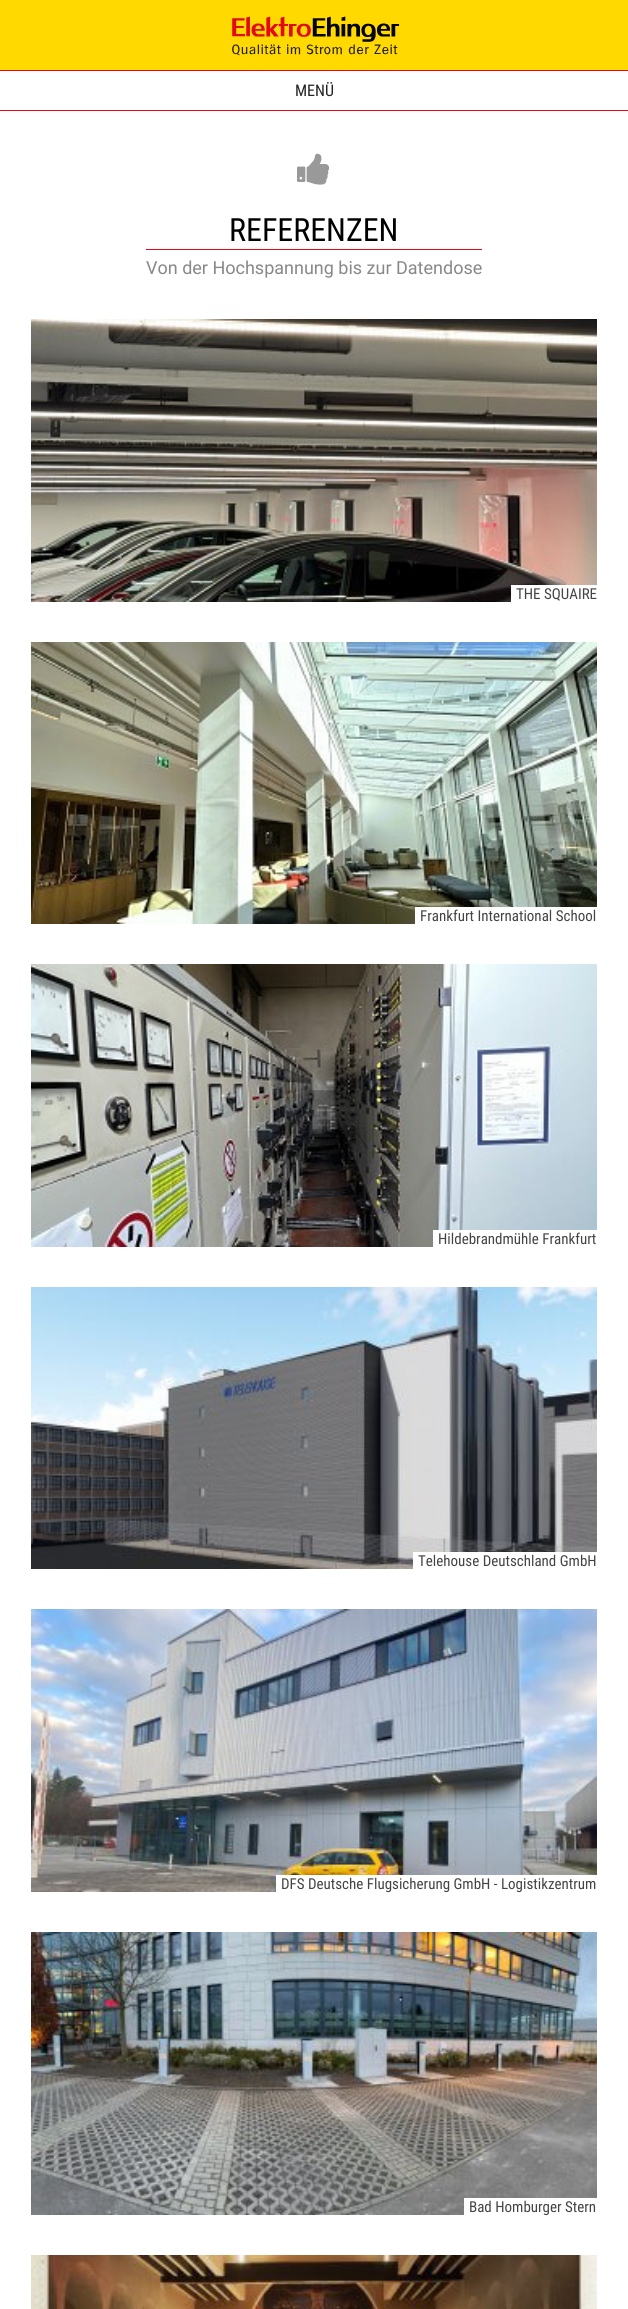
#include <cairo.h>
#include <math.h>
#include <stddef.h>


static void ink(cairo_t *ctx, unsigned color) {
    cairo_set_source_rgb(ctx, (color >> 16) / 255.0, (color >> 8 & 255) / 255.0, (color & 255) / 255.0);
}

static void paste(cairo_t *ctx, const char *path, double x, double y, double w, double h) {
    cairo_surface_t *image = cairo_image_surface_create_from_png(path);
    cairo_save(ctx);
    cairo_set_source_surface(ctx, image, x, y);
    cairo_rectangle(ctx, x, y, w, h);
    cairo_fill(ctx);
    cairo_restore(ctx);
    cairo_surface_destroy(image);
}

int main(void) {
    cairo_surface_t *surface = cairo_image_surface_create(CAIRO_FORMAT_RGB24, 628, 2309);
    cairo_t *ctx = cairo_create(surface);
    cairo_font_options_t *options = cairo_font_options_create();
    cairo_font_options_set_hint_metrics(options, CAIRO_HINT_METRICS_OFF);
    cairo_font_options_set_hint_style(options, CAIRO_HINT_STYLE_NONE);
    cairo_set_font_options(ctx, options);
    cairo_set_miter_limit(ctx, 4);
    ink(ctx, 0xFFFFFF);
    cairo_paint(ctx);
    ink(ctx, 0xFFD900);
    cairo_rectangle(ctx, 0, 0, 628, 70);
    cairo_fill(ctx);
    paste(ctx, "media/1.png", 232, 16, 168, 40);
    ink(ctx, 0xE20A16);
    cairo_rectangle(ctx, 0, 70, 628, 1);
    cairo_fill(ctx);
    cairo_rectangle(ctx, 0, 110, 628, 1);
    cairo_fill(ctx);
    cairo_select_font_face(ctx, "Roboto Condensed", CAIRO_FONT_SLANT_NORMAL, CAIRO_FONT_WEIGHT_NORMAL);
    cairo_set_font_size(ctx, 16);
    ink(ctx, 0x222222);
    cairo_move_to(ctx, 295, 96);
    cairo_show_text(ctx, "MENÜ");
    paste(ctx, "media/2.png", 297, 153, 33, 32);
    cairo_set_font_size(ctx, 32);
    ink(ctx, 0x000000);
    cairo_move_to(ctx, 229, 241);
    cairo_show_text(ctx, "REFERENZEN");
    ink(ctx, 0xE20A16);
    cairo_rectangle(ctx, 146, 249, 336, 1);
    cairo_fill(ctx);
    cairo_select_font_face(ctx, "Roboto", CAIRO_FONT_SLANT_NORMAL, CAIRO_FONT_WEIGHT_NORMAL);
    cairo_set_font_size(ctx, 18);
    ink(ctx, 0x888888);
    cairo_move_to(ctx, 146, 274);
    cairo_show_text(ctx, "Von der Hochspannung bis zur Datendose");
    paste(ctx, "media/3.png", 31, 319, 566, 283);
    ink(ctx, 0xFFFFFF);
    cairo_rectangle(ctx, 511, 585, 86, 17);
    cairo_fill(ctx);
    cairo_select_font_face(ctx, "Roboto Condensed", CAIRO_FONT_SLANT_NORMAL, CAIRO_FONT_WEIGHT_NORMAL);
    cairo_set_font_size(ctx, 15);
    ink(ctx, 0x444444);
    cairo_move_to(ctx, 516, 599);
    cairo_show_text(ctx, "THE SQUAIRE");
    paste(ctx, "media/4.png", 31, 642, 566, 282);
    ink(ctx, 0xFFFFFF);
    cairo_rectangle(ctx, 415, 907, 182, 17);
    cairo_fill(ctx);
    ink(ctx, 0x444444);
    cairo_move_to(ctx, 420, 921);
    cairo_show_text(ctx, "Frankfurt International School");
    paste(ctx, "media/5.png", 31, 964, 566, 283);
    ink(ctx, 0xFFFFFF);
    cairo_rectangle(ctx, 433, 1230, 164, 17);
    cairo_fill(ctx);
    ink(ctx, 0x444444);
    cairo_move_to(ctx, 438, 1244);
    cairo_show_text(ctx, "Hildebrandmühle Frankfurt");
    paste(ctx, "media/6.png", 31, 1287, 566, 282);
    ink(ctx, 0xFFFFFF);
    cairo_rectangle(ctx, 413, 1552, 184, 17);
    cairo_fill(ctx);
    ink(ctx, 0x444444);
    cairo_move_to(ctx, 418, 1566);
    cairo_show_text(ctx, "Telehouse Deutschland GmbH");
    paste(ctx, "media/7.png", 31, 1609, 566, 283);
    ink(ctx, 0xFFFFFF);
    cairo_rectangle(ctx, 276, 1875, 321, 17);
    cairo_fill(ctx);
    ink(ctx, 0x444444);
    cairo_move_to(ctx, 281, 1889);
    cairo_show_text(ctx, "DFS Deutsche Flugsicherung GmbH - Logistikzentrum");
    paste(ctx, "media/8.png", 31, 1932, 566, 283);
    ink(ctx, 0xFFFFFF);
    cairo_rectangle(ctx, 464, 2198, 133, 17);
    cairo_fill(ctx);
    ink(ctx, 0x444444);
    cairo_move_to(ctx, 469, 2212);
    cairo_show_text(ctx, "Bad Homburger Stern");
    paste(ctx, "media/9.png", 31, 2255, 566, 54);
    cairo_surface_write_to_png(surface, "image.png");
    cairo_font_options_destroy(options);
    cairo_destroy(ctx);
    cairo_surface_destroy(surface);
    return 0;
}
